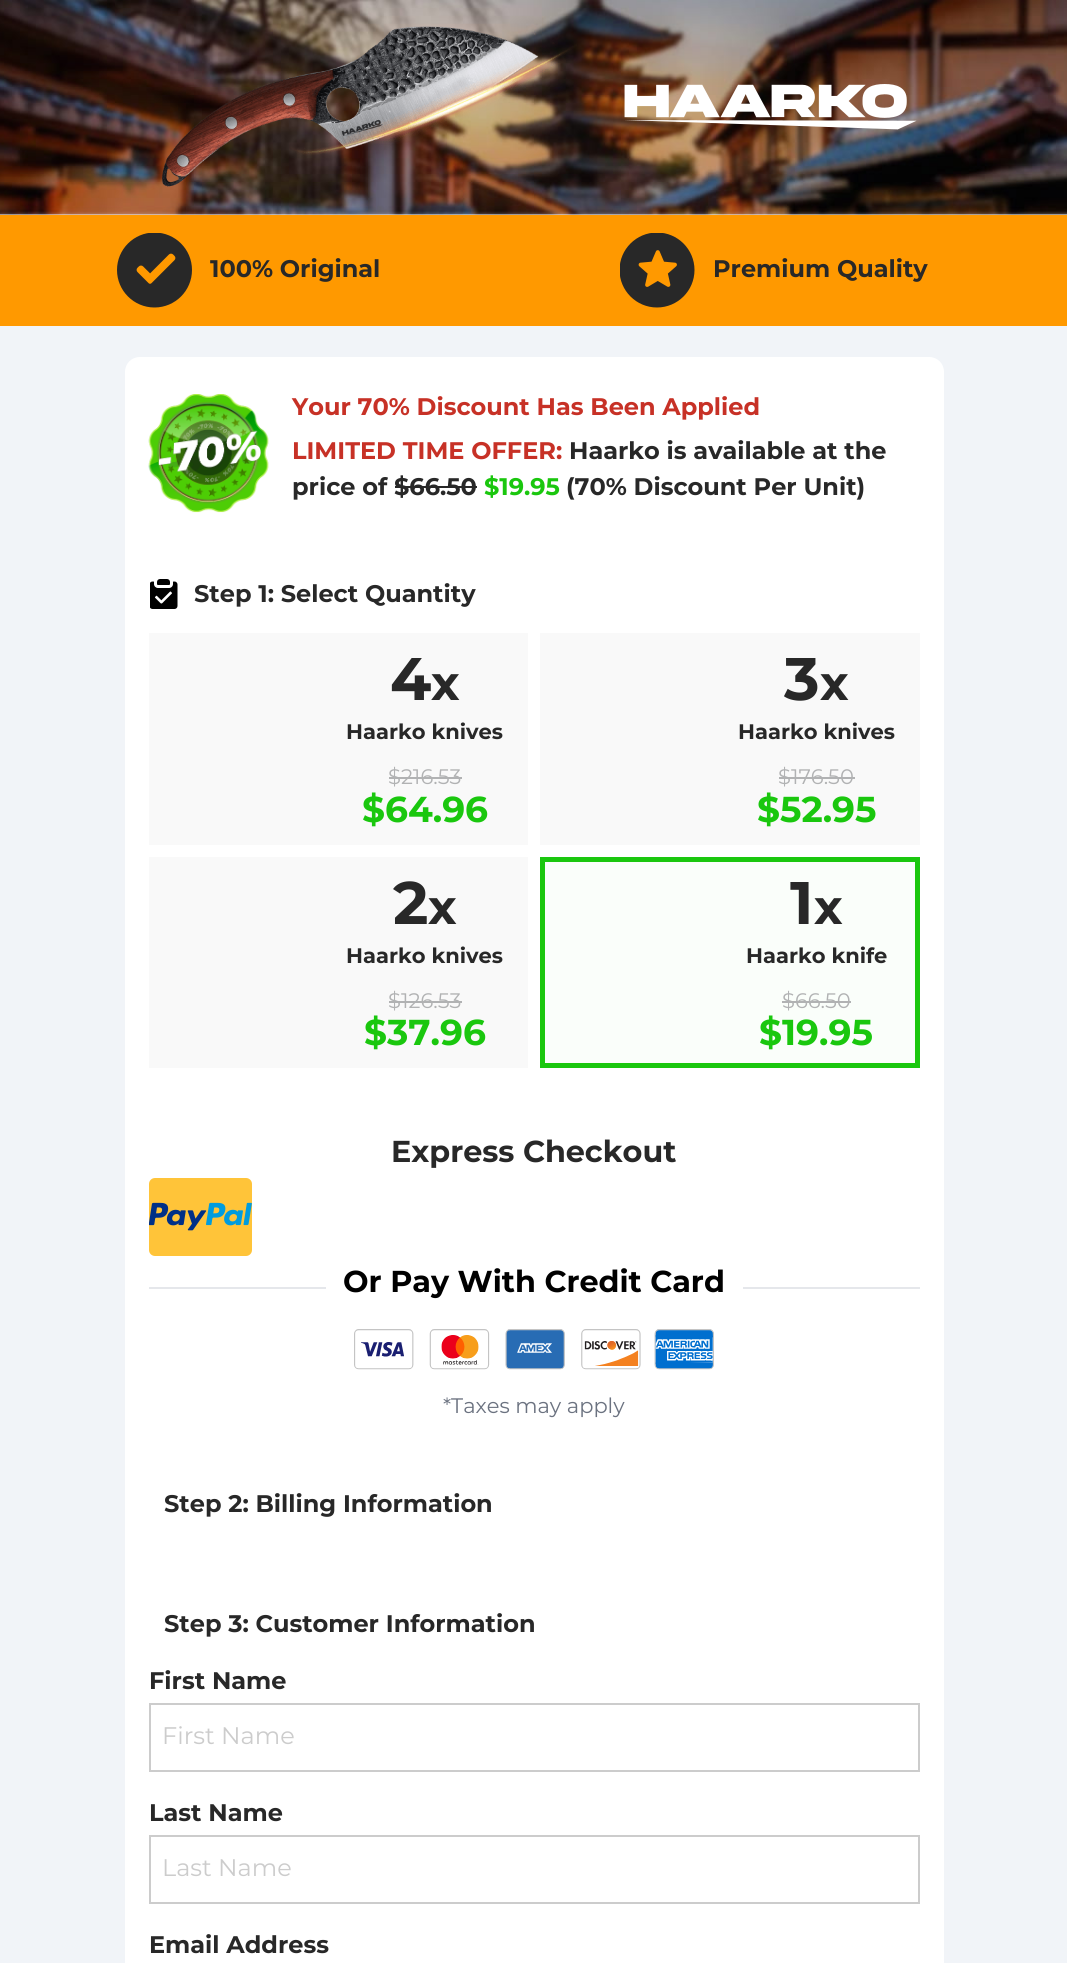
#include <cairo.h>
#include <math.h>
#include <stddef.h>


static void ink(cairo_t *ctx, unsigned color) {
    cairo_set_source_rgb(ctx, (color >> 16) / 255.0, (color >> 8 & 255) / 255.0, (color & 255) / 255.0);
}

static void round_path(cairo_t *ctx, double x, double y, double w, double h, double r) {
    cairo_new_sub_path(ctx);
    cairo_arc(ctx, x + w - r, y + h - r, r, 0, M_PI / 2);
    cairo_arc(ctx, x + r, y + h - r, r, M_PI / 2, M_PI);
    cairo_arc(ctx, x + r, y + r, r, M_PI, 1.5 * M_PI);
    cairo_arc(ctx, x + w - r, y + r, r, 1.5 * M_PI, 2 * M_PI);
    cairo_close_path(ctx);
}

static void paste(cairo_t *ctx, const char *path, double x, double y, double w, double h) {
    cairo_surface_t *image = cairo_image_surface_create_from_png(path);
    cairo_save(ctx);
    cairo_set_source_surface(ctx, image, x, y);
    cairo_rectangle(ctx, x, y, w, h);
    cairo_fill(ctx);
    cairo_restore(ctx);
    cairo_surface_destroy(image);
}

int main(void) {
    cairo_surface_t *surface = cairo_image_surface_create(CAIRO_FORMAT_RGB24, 1067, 1963);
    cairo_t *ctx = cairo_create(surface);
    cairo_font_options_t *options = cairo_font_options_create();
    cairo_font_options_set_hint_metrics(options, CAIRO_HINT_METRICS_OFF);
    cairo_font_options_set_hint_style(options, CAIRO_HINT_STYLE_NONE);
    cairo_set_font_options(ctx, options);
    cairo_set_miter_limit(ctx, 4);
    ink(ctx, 0xF1F4F8);
    cairo_paint(ctx);
    paste(ctx, "media/1.png", 0, 0, 1067, 215);
    paste(ctx, "media/2.png", 162, 26, 415, 161);
    paste(ctx, "media/3.png", 624, 84, 293, 46);
    ink(ctx, 0xFF9900);
    cairo_rectangle(ctx, 0, 215, 1067, 111);
    cairo_fill(ctx);
    paste(ctx, "media/4.png", 117, 233, 75, 75);
    cairo_select_font_face(ctx, "Montserrat", CAIRO_FONT_SLANT_NORMAL, CAIRO_FONT_WEIGHT_BOLD);
    cairo_set_font_size(ctx, 24);
    ink(ctx, 0x282828);
    cairo_move_to(ctx, 210, 277);
    cairo_show_text(ctx, "100% Original");
    paste(ctx, "media/5.png", 620, 233, 75, 75);
    cairo_move_to(ctx, 713, 277);
    cairo_show_text(ctx, "Premium Quality");
    ink(ctx, 0xFFFFFF);
    cairo_new_path(ctx);
    cairo_move_to(ctx, 140, 357);
    cairo_line_to(ctx, 929, 357);
    cairo_curve_to(ctx, 937.5, 357, 944, 363.5, 944, 372);
    cairo_line_to(ctx, 944, 1610);
    cairo_line_to(ctx, 125, 1610);
    cairo_line_to(ctx, 125, 372);
    cairo_curve_to(ctx, 125, 363.5, 131.5, 357, 140, 357);
    cairo_close_path(ctx);
    cairo_fill(ctx);
    paste(ctx, "media/6.png", 148, 394, 121, 119);
    ink(ctx, 0xC73126);
    cairo_move_to(ctx, 292, 415);
    cairo_show_text(ctx, "Your 70% Discount Has Been Applied");
    ink(ctx, 0x282828);
    cairo_move_to(ctx, 569, 459);
    cairo_show_text(ctx, "Haarko is available at the");
    cairo_move_to(ctx, 292, 495);
    cairo_show_text(ctx, "price of $66.50");
    ink(ctx, 0x1AC70E);
    cairo_move_to(ctx, 484, 495);
    cairo_show_text(ctx, "$19.95");
    ink(ctx, 0x282828);
    cairo_move_to(ctx, 566, 495);
    cairo_show_text(ctx, "(70% Discount Per Unit)");
    cairo_rectangle(ctx, 395, 486, 82, 2);
    cairo_fill(ctx);
    ink(ctx, 0xC73126);
    cairo_move_to(ctx, 292, 459);
    cairo_show_text(ctx, "LIMITED TIME OFFER:");
    paste(ctx, "media/7.png", 150, 579, 28, 30);
    ink(ctx, 0x282828);
    cairo_move_to(ctx, 194, 602);
    cairo_show_text(ctx, "Step 1: Select Quantity");
    ink(ctx, 0xF9F9F9);
    cairo_rectangle(ctx, 149, 633, 379, 212);
    cairo_fill(ctx);
    cairo_set_font_size(ctx, 60);
    ink(ctx, 0x282828);
    cairo_move_to(ctx, 390, 700);
    cairo_show_text(ctx, "4");
    cairo_set_font_size(ctx, 48);
    cairo_move_to(ctx, 431, 700);
    cairo_show_text(ctx, "x");
    cairo_set_font_size(ctx, 21);
    cairo_move_to(ctx, 346, 739);
    cairo_show_text(ctx, "Haarko knives");
    cairo_select_font_face(ctx, "Montserrat", CAIRO_FONT_SLANT_NORMAL, CAIRO_FONT_WEIGHT_NORMAL);
    ink(ctx, 0xB1B2B3);
    cairo_move_to(ctx, 388, 784);
    cairo_show_text(ctx, "$216.53");
    cairo_rectangle(ctx, 389, 777, 73, 2);
    cairo_fill(ctx);
    cairo_select_font_face(ctx, "Montserrat", CAIRO_FONT_SLANT_NORMAL, CAIRO_FONT_WEIGHT_BOLD);
    cairo_set_font_size(ctx, 36);
    ink(ctx, 0x1AC70E);
    cairo_move_to(ctx, 362, 822);
    cairo_show_text(ctx, "$64.96");
    ink(ctx, 0xF9F9F9);
    cairo_rectangle(ctx, 540, 633, 380, 212);
    cairo_fill(ctx);
    cairo_set_font_size(ctx, 60);
    ink(ctx, 0x282828);
    cairo_move_to(ctx, 784, 700);
    cairo_show_text(ctx, "3");
    cairo_set_font_size(ctx, 48);
    cairo_move_to(ctx, 820, 700);
    cairo_show_text(ctx, "x");
    cairo_set_font_size(ctx, 21);
    cairo_move_to(ctx, 738, 739);
    cairo_show_text(ctx, "Haarko knives");
    cairo_select_font_face(ctx, "Montserrat", CAIRO_FONT_SLANT_NORMAL, CAIRO_FONT_WEIGHT_NORMAL);
    ink(ctx, 0xB1B2B3);
    cairo_move_to(ctx, 778, 784);
    cairo_show_text(ctx, "$176.50");
    cairo_rectangle(ctx, 779, 777, 76, 2);
    cairo_fill(ctx);
    cairo_select_font_face(ctx, "Montserrat", CAIRO_FONT_SLANT_NORMAL, CAIRO_FONT_WEIGHT_BOLD);
    cairo_set_font_size(ctx, 36);
    ink(ctx, 0x1AC70E);
    cairo_move_to(ctx, 757, 822);
    cairo_show_text(ctx, "$52.95");
    ink(ctx, 0xF9F9F9);
    cairo_rectangle(ctx, 149, 857, 379, 211);
    cairo_fill(ctx);
    cairo_set_font_size(ctx, 60);
    ink(ctx, 0x282828);
    cairo_move_to(ctx, 393, 924);
    cairo_show_text(ctx, "2");
    cairo_set_font_size(ctx, 48);
    cairo_move_to(ctx, 428, 924);
    cairo_show_text(ctx, "x");
    cairo_set_font_size(ctx, 21);
    cairo_move_to(ctx, 346, 963);
    cairo_show_text(ctx, "Haarko knives");
    cairo_select_font_face(ctx, "Montserrat", CAIRO_FONT_SLANT_NORMAL, CAIRO_FONT_WEIGHT_NORMAL);
    ink(ctx, 0xB1B2B3);
    cairo_move_to(ctx, 388, 1008);
    cairo_show_text(ctx, "$126.53");
    cairo_rectangle(ctx, 389, 1001, 73, 2);
    cairo_fill(ctx);
    cairo_select_font_face(ctx, "Montserrat", CAIRO_FONT_SLANT_NORMAL, CAIRO_FONT_WEIGHT_BOLD);
    cairo_set_font_size(ctx, 36);
    ink(ctx, 0x1AC70E);
    cairo_move_to(ctx, 364, 1045);
    cairo_show_text(ctx, "$37.96");
    ink(ctx, 0xFAFEFA);
    cairo_rectangle(ctx, 542.5, 859.5, 375, 206);
    cairo_fill_preserve(ctx);
    ink(ctx, 0x1AC70E);
    cairo_set_line_width(ctx, 5);
    cairo_stroke(ctx);
    cairo_set_font_size(ctx, 60);
    ink(ctx, 0x282828);
    cairo_move_to(ctx, 790, 924);
    cairo_show_text(ctx, "1");
    cairo_set_font_size(ctx, 48);
    cairo_move_to(ctx, 814, 924);
    cairo_show_text(ctx, "x");
    cairo_set_font_size(ctx, 21);
    cairo_move_to(ctx, 746, 963);
    cairo_show_text(ctx, "Haarko knife");
    cairo_select_font_face(ctx, "Montserrat", CAIRO_FONT_SLANT_NORMAL, CAIRO_FONT_WEIGHT_NORMAL);
    ink(ctx, 0xB1B2B3);
    cairo_move_to(ctx, 782, 1008);
    cairo_show_text(ctx, "$66.50");
    cairo_rectangle(ctx, 782, 1001, 69, 2);
    cairo_fill(ctx);
    cairo_select_font_face(ctx, "Montserrat", CAIRO_FONT_SLANT_NORMAL, CAIRO_FONT_WEIGHT_BOLD);
    cairo_set_font_size(ctx, 36);
    ink(ctx, 0x1AC70E);
    cairo_move_to(ctx, 759, 1045);
    cairo_show_text(ctx, "$19.95");
    cairo_set_font_size(ctx, 30.25);
    ink(ctx, 0x282828);
    cairo_move_to(ctx, 391, 1162);
    cairo_show_text(ctx, "Express Checkout");
    ink(ctx, 0xFFC439);
    round_path(ctx, 149, 1178, 103, 78, 6);
    cairo_fill(ctx);
    paste(ctx, "media/8.png", 149, 1202, 103, 29);
    ink(ctx, 0xE5E7EB);
    cairo_rectangle(ctx, 149, 1287, 177, 2);
    cairo_fill(ctx);
    ink(ctx, 0x000000);
    cairo_move_to(ctx, 343, 1292);
    cairo_show_text(ctx, "Or Pay With Credit Card");
    ink(ctx, 0xE5E7EB);
    cairo_rectangle(ctx, 743, 1287, 177, 2);
    cairo_fill(ctx);
    paste(ctx, "media/9.png", 354, 1329, 360, 41);
    cairo_select_font_face(ctx, "Montserrat", CAIRO_FONT_SLANT_NORMAL, CAIRO_FONT_WEIGHT_NORMAL);
    cairo_set_font_size(ctx, 21);
    ink(ctx, 0x6B7280);
    cairo_move_to(ctx, 443, 1413);
    cairo_show_text(ctx, "*Taxes may apply");
    cairo_select_font_face(ctx, "Montserrat", CAIRO_FONT_SLANT_NORMAL, CAIRO_FONT_WEIGHT_BOLD);
    cairo_set_font_size(ctx, 24);
    ink(ctx, 0x282828);
    cairo_move_to(ctx, 164, 1512);
    cairo_show_text(ctx, "Step 2: Billing Information");
    ink(ctx, 0xFFFFFF);
    cairo_rectangle(ctx, 125, 1610, 819, 353);
    cairo_fill(ctx);
    ink(ctx, 0x282828);
    cairo_move_to(ctx, 164, 1632);
    cairo_show_text(ctx, "Step 3: Customer Information");
    cairo_move_to(ctx, 149, 1689);
    cairo_show_text(ctx, "First Name");
    cairo_rectangle(ctx, 150, 1704, 769, 67);
    ink(ctx, 0xCCCCCC);
    cairo_set_line_width(ctx, 2);
    cairo_stroke(ctx);
    cairo_select_font_face(ctx, "Montserrat", CAIRO_FONT_SLANT_NORMAL, CAIRO_FONT_WEIGHT_NORMAL);
    cairo_move_to(ctx, 162, 1744);
    cairo_show_text(ctx, "First Name");
    cairo_select_font_face(ctx, "Montserrat", CAIRO_FONT_SLANT_NORMAL, CAIRO_FONT_WEIGHT_BOLD);
    ink(ctx, 0x282828);
    cairo_move_to(ctx, 149, 1821);
    cairo_show_text(ctx, "Last Name");
    cairo_rectangle(ctx, 150, 1836, 769, 67);
    ink(ctx, 0xCCCCCC);
    cairo_stroke(ctx);
    cairo_select_font_face(ctx, "Montserrat", CAIRO_FONT_SLANT_NORMAL, CAIRO_FONT_WEIGHT_NORMAL);
    cairo_move_to(ctx, 162, 1876);
    cairo_show_text(ctx, "Last Name");
    cairo_select_font_face(ctx, "Montserrat", CAIRO_FONT_SLANT_NORMAL, CAIRO_FONT_WEIGHT_BOLD);
    ink(ctx, 0x282828);
    cairo_move_to(ctx, 149, 1953);
    cairo_show_text(ctx, "Email Address");
    cairo_surface_write_to_png(surface, "image.png");
    cairo_font_options_destroy(options);
    cairo_destroy(ctx);
    cairo_surface_destroy(surface);
    return 0;
}
